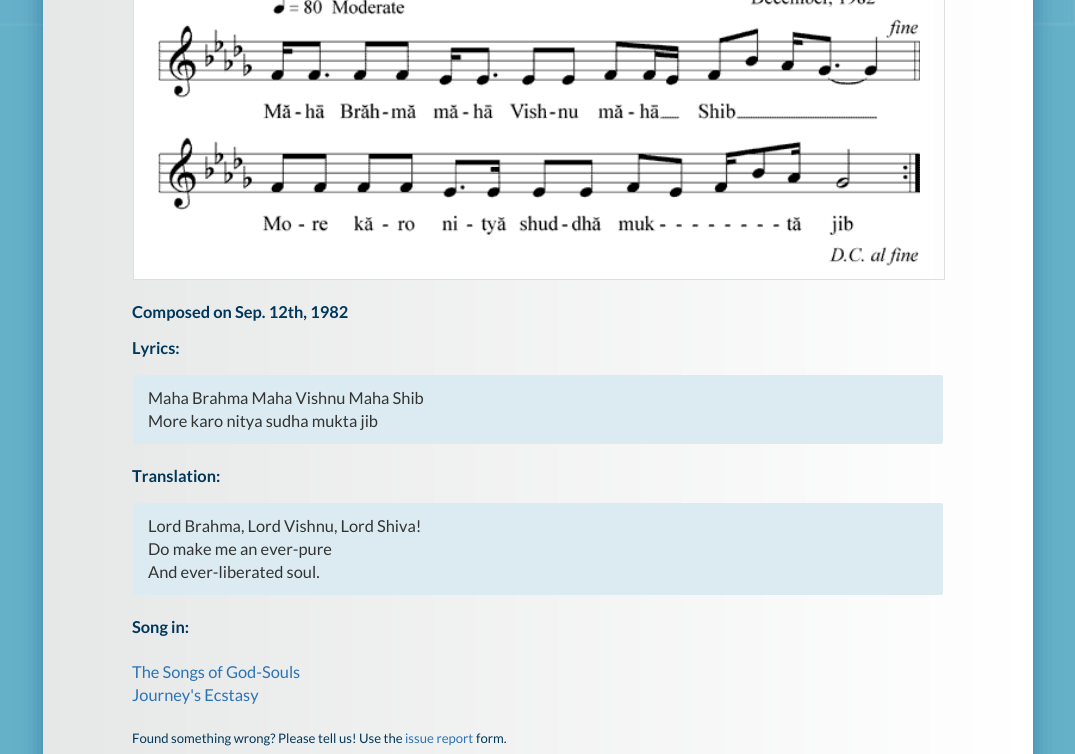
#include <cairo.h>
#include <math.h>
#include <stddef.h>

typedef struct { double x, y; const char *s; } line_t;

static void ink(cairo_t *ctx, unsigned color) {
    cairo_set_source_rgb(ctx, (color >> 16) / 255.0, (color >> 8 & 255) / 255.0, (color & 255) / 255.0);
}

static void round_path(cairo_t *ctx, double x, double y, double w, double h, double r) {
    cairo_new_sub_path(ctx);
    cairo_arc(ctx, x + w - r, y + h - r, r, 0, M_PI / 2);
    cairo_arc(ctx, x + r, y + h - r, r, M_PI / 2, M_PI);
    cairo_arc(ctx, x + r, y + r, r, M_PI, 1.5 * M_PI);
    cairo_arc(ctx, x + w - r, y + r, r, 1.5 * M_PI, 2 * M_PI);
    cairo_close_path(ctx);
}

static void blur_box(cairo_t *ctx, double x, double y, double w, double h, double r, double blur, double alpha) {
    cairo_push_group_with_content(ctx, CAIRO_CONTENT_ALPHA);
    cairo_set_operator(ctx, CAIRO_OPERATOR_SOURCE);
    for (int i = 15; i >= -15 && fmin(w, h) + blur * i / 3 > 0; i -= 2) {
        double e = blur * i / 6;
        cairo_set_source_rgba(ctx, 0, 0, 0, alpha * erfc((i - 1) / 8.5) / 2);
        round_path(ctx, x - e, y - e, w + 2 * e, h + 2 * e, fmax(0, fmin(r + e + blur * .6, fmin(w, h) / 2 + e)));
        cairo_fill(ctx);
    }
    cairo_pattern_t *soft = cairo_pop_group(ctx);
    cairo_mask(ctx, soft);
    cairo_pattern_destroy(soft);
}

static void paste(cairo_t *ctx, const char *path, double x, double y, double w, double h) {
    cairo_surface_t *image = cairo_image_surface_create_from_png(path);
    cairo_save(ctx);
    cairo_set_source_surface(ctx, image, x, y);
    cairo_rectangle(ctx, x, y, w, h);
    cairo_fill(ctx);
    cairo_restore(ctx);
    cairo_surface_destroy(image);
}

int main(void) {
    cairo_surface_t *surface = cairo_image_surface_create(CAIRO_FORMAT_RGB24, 1075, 754);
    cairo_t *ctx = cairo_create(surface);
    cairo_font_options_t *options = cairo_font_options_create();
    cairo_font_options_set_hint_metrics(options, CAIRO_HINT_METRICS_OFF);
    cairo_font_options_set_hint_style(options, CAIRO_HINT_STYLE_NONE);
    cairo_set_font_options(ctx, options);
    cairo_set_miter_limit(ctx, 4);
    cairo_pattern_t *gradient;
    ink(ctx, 0x65B1C8);
    cairo_paint(ctx);
    ink(ctx, 0x6CB4CB);
    cairo_rectangle(ctx, 0, 0, 1075, 26);
    cairo_fill(ctx);
    paste(ctx, "media/1.png", 0, 0, 1074, 24);
    ink(ctx, 0x014475);
    blur_box(ctx, 43, -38, 990, 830, 0, 12.5, 0.42);
    gradient = cairo_pattern_create_linear(43, 294, 1033, 294);
    cairo_pattern_add_color_stop_rgba(gradient, 0, 0.902, 0.906, 0.906, 1);
    cairo_pattern_add_color_stop_rgba(gradient, 1, 1, 1, 1, 1);
    cairo_set_source(ctx, gradient);
    cairo_pattern_destroy(gradient);
    cairo_rectangle(ctx, 43, 0, 990, 754);
    cairo_fill(ctx);
    ink(ctx, 0xFFFFFF);
    cairo_rectangle(ctx, 134, 0, 800, 279);
    cairo_fill(ctx);
    cairo_rectangle(ctx, 133.5, -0.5, 811, 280);
    ink(ctx, 0xDEDEDE);
    cairo_set_line_width(ctx, 1);
    cairo_stroke(ctx);
    paste(ctx, "media/2.png", 158, 0, 762, 266);
    cairo_select_font_face(ctx, "Lato", CAIRO_FONT_SLANT_NORMAL, CAIRO_FONT_WEIGHT_BOLD);
    cairo_set_font_size(ctx, 16.4);
    ink(ctx, 0x00375A);
    cairo_move_to(ctx, 132, 318);
    cairo_show_text(ctx, "Composed on Sep. 12th, 1982");
    cairo_move_to(ctx, 132, 354);
    cairo_show_text(ctx, "Lyrics:");
    ink(ctx, 0xDBEBF1);
    round_path(ctx, 133, 375, 810, 69, 2.5);
    cairo_fill(ctx);
    cairo_select_font_face(ctx, "Lato", CAIRO_FONT_SLANT_NORMAL, CAIRO_FONT_WEIGHT_NORMAL);
    ink(ctx, 0x333333);
    cairo_move_to(ctx, 148, 404);
    cairo_show_text(ctx, "Maha Brahma Maha Vishnu Maha Shib");
    cairo_move_to(ctx, 148, 427);
    cairo_show_text(ctx, "More karo nitya sudha mukta jib");
    cairo_select_font_face(ctx, "Lato", CAIRO_FONT_SLANT_NORMAL, CAIRO_FONT_WEIGHT_BOLD);
    ink(ctx, 0x00375A);
    cairo_move_to(ctx, 132, 482);
    cairo_show_text(ctx, "Translation:");
    ink(ctx, 0xDBEBF1);
    round_path(ctx, 133, 503, 810, 92, 2.5);
    cairo_fill(ctx);
    cairo_select_font_face(ctx, "Lato", CAIRO_FONT_SLANT_NORMAL, CAIRO_FONT_WEIGHT_NORMAL);
    ink(ctx, 0x333333);
    {
        static const line_t items[] = {
            {148, 532, "Lord Brahma, Lord Vishnu, Lord Shiva!"},
            {148, 555, "Do make me an ever-pure"},
            {148, 578, "And ever-liberated soul."},
        };
        for (size_t i = 0; i < sizeof items / sizeof *items; i++) {
            cairo_move_to(ctx, items[i].x, items[i].y);
            cairo_show_text(ctx, items[i].s);
        }
    }
    cairo_select_font_face(ctx, "Lato", CAIRO_FONT_SLANT_NORMAL, CAIRO_FONT_WEIGHT_BOLD);
    ink(ctx, 0x00375A);
    cairo_move_to(ctx, 132, 633);
    cairo_show_text(ctx, "Song in:");
    cairo_select_font_face(ctx, "Lato", CAIRO_FONT_SLANT_NORMAL, CAIRO_FONT_WEIGHT_NORMAL);
    ink(ctx, 0x2B73B7);
    cairo_move_to(ctx, 132, 678);
    cairo_show_text(ctx, "The Songs of God-Souls");
    cairo_move_to(ctx, 132, 701);
    cairo_show_text(ctx, "Journey's Ecstasy");
    cairo_set_font_size(ctx, 13.1);
    ink(ctx, 0x00375A);
    cairo_move_to(ctx, 132, 743);
    cairo_show_text(ctx, "Found something wrong? Please tell us! Use the");
    ink(ctx, 0x2B73B7);
    cairo_move_to(ctx, 405, 743);
    cairo_show_text(ctx, "issue report");
    ink(ctx, 0x00375A);
    cairo_move_to(ctx, 476, 743);
    cairo_show_text(ctx, "form.");
    cairo_surface_write_to_png(surface, "image.png");
    cairo_font_options_destroy(options);
    cairo_destroy(ctx);
    cairo_surface_destroy(surface);
    return 0;
}
